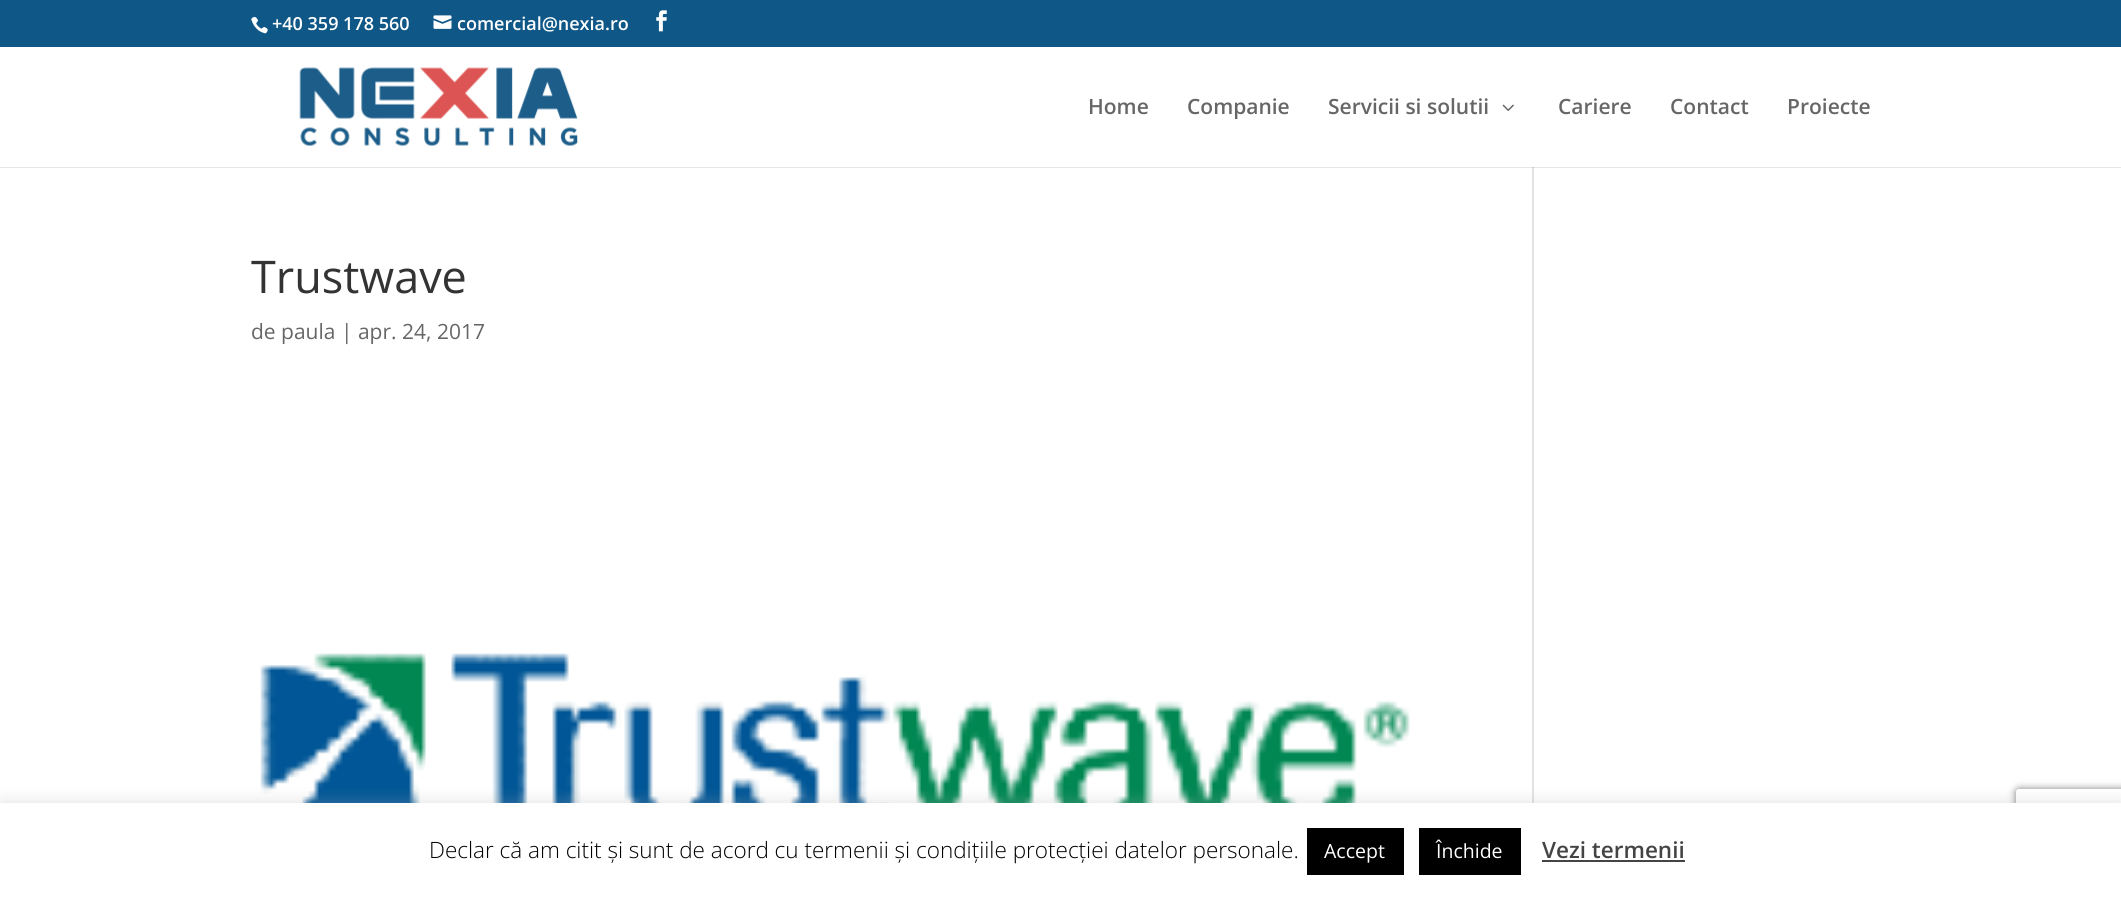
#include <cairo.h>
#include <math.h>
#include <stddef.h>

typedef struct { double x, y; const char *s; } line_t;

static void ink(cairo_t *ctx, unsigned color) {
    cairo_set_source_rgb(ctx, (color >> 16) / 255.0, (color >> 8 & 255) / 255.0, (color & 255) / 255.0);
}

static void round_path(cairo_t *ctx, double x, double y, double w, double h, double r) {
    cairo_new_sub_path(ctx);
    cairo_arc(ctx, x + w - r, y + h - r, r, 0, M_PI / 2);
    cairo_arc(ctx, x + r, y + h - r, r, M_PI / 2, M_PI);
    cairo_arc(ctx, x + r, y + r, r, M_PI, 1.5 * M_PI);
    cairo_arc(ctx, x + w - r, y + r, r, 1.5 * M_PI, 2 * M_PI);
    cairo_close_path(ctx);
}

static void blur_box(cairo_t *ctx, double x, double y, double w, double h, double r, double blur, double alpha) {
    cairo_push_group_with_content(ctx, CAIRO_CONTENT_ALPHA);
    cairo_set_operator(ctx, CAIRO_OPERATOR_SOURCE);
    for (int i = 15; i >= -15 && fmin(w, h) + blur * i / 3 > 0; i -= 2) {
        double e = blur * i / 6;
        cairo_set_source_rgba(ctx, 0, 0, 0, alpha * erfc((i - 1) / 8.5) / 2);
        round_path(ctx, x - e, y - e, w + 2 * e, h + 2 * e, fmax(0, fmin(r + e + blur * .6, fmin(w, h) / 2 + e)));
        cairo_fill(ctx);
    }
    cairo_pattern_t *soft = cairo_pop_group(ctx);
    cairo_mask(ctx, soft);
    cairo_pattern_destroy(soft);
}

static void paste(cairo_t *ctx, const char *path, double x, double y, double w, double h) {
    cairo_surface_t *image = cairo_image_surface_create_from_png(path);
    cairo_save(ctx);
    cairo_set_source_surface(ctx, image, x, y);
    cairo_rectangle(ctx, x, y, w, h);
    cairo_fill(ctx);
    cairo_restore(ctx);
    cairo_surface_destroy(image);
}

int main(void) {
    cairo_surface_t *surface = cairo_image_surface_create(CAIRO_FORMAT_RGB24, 2121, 899);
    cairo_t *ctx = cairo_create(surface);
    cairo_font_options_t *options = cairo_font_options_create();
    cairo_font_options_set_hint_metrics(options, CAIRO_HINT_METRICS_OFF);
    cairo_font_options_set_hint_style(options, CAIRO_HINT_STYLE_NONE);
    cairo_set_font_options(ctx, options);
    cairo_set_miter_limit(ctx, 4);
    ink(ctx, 0xFFFFFF);
    cairo_paint(ctx);
    ink(ctx, 0xE6E6E6);
    cairo_rectangle(ctx, 0, 167, 2121, 1);
    cairo_fill(ctx);
    ink(ctx, 0x0F5787);
    cairo_rectangle(ctx, 0, 0, 2121, 47);
    cairo_fill(ctx);
    paste(ctx, "media/1.png", 251, 16, 17, 18);
    cairo_select_font_face(ctx, "Open Sans SemiBold", CAIRO_FONT_SLANT_NORMAL, CAIRO_FONT_WEIGHT_NORMAL);
    cairo_set_font_size(ctx, 18);
    ink(ctx, 0xFFFFFF);
    cairo_move_to(ctx, 272, 30);
    cairo_show_text(ctx, "+40 359 178 560");
    paste(ctx, "media/2.png", 433, 15, 19, 14);
    cairo_move_to(ctx, 457, 30);
    cairo_show_text(ctx, "comercial@nexia.ro");
    paste(ctx, "media/3.png", 656, 10, 11, 22);
    paste(ctx, "media/4.png", 299, 67, 279, 79);
    cairo_set_font_size(ctx, 21);
    ink(ctx, 0x666666);
    {
        static const line_t items[] = {
            {1088, 114, "Home"},
            {1187, 114, "Companie"},
            {1328, 114, "Servicii si solutii"},
        };
        for (size_t i = 0; i < sizeof items / sizeof *items; i++) {
            cairo_move_to(ctx, items[i].x, items[i].y);
            cairo_show_text(ctx, items[i].s);
        }
    }
    paste(ctx, "media/5.png", 1502, 104, 12, 7);
    {
        static const line_t items[] = {
            {1558, 114, "Cariere"},
            {1670, 114, "Contact"},
            {1787, 114, "Proiecte"},
        };
        for (size_t i = 0; i < sizeof items / sizeof *items; i++) {
            cairo_move_to(ctx, items[i].x, items[i].y);
            cairo_show_text(ctx, items[i].s);
        }
    }
    cairo_select_font_face(ctx, "Open Sans", CAIRO_FONT_SLANT_NORMAL, CAIRO_FONT_WEIGHT_NORMAL);
    cairo_set_font_size(ctx, 45);
    ink(ctx, 0x333333);
    cairo_move_to(ctx, 251, 293);
    cairo_show_text(ctx, "Trustwave");
    cairo_set_font_size(ctx, 21);
    ink(ctx, 0x666666);
    cairo_move_to(ctx, 251, 339);
    cairo_show_text(ctx, "de paula | apr. 24, 2017");
    paste(ctx, "media/6.png", 260, 653, 1150, 150);
    ink(ctx, 0xE2E2E2);
    cairo_rectangle(ctx, 1532, 167, 2, 636);
    cairo_fill(ctx);
    ink(ctx, 0xCBCBCB);
    cairo_rectangle(ctx, 1532, 167, 2, 1);
    cairo_fill(ctx);
    ink(ctx, 0xACABAB);
    blur_box(ctx, 0, 801, 2121, 98, 0, 7.5, 0.3);
    cairo_save(ctx);
    cairo_set_fill_rule(ctx, CAIRO_FILL_RULE_EVEN_ODD);
    cairo_new_path(ctx);
    cairo_move_to(ctx, 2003, 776);
    cairo_line_to(ctx, 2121, 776);
    cairo_line_to(ctx, 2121, 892);
    cairo_line_to(ctx, 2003, 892);
    cairo_close_path(ctx);
    cairo_move_to(ctx, 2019, 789);
    cairo_line_to(ctx, 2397, 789);
    cairo_curve_to(ctx, 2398.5, 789, 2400, 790.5, 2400, 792);
    cairo_line_to(ctx, 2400, 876);
    cairo_curve_to(ctx, 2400, 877.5, 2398.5, 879, 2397, 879);
    cairo_line_to(ctx, 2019, 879);
    cairo_curve_to(ctx, 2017.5, 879, 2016, 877.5, 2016, 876);
    cairo_line_to(ctx, 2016, 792);
    cairo_curve_to(ctx, 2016, 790.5, 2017.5, 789, 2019, 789);
    cairo_close_path(ctx);
    cairo_clip(ctx);
    ink(ctx, 0x808080);
    blur_box(ctx, 2016, 789, 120, 90, 3, 4, 1);
    cairo_restore(ctx);
    ink(ctx, 0xFFFFFF);
    cairo_rectangle(ctx, 0, 803, 2121, 96);
    cairo_fill(ctx);
    cairo_select_font_face(ctx, "Open Sans Light", CAIRO_FONT_SLANT_NORMAL, CAIRO_FONT_WEIGHT_NORMAL);
    cairo_set_font_size(ctx, 22.5);
    ink(ctx, 0x000000);
    cairo_move_to(ctx, 429, 858);
    cairo_show_text(ctx, "Declar că am citit și sunt de acord cu termenii și condițiile protecției datelor personale.");
    cairo_rectangle(ctx, 1307, 828, 97, 47);
    cairo_fill(ctx);
    cairo_select_font_face(ctx, "Open Sans", CAIRO_FONT_SLANT_NORMAL, CAIRO_FONT_WEIGHT_NORMAL);
    cairo_set_font_size(ctx, 19.5);
    ink(ctx, 0xFFFFFF);
    cairo_move_to(ctx, 1324, 858);
    cairo_show_text(ctx, "Accept");
    ink(ctx, 0x000000);
    cairo_rectangle(ctx, 1419, 828, 102, 47);
    cairo_fill(ctx);
    ink(ctx, 0xFFFFFF);
    cairo_move_to(ctx, 1436, 858);
    cairo_show_text(ctx, "Închide");
    cairo_select_font_face(ctx, "Open Sans SemiBold", CAIRO_FONT_SLANT_NORMAL, CAIRO_FONT_WEIGHT_NORMAL);
    cairo_set_font_size(ctx, 22.5);
    ink(ctx, 0x444444);
    cairo_move_to(ctx, 1542, 858);
    cairo_show_text(ctx, "Vezi termenii");
    cairo_rectangle(ctx, 1542, 860, 143, 2);
    cairo_fill(ctx);
    cairo_surface_write_to_png(surface, "image.png");
    cairo_font_options_destroy(options);
    cairo_destroy(ctx);
    cairo_surface_destroy(surface);
    return 0;
}
